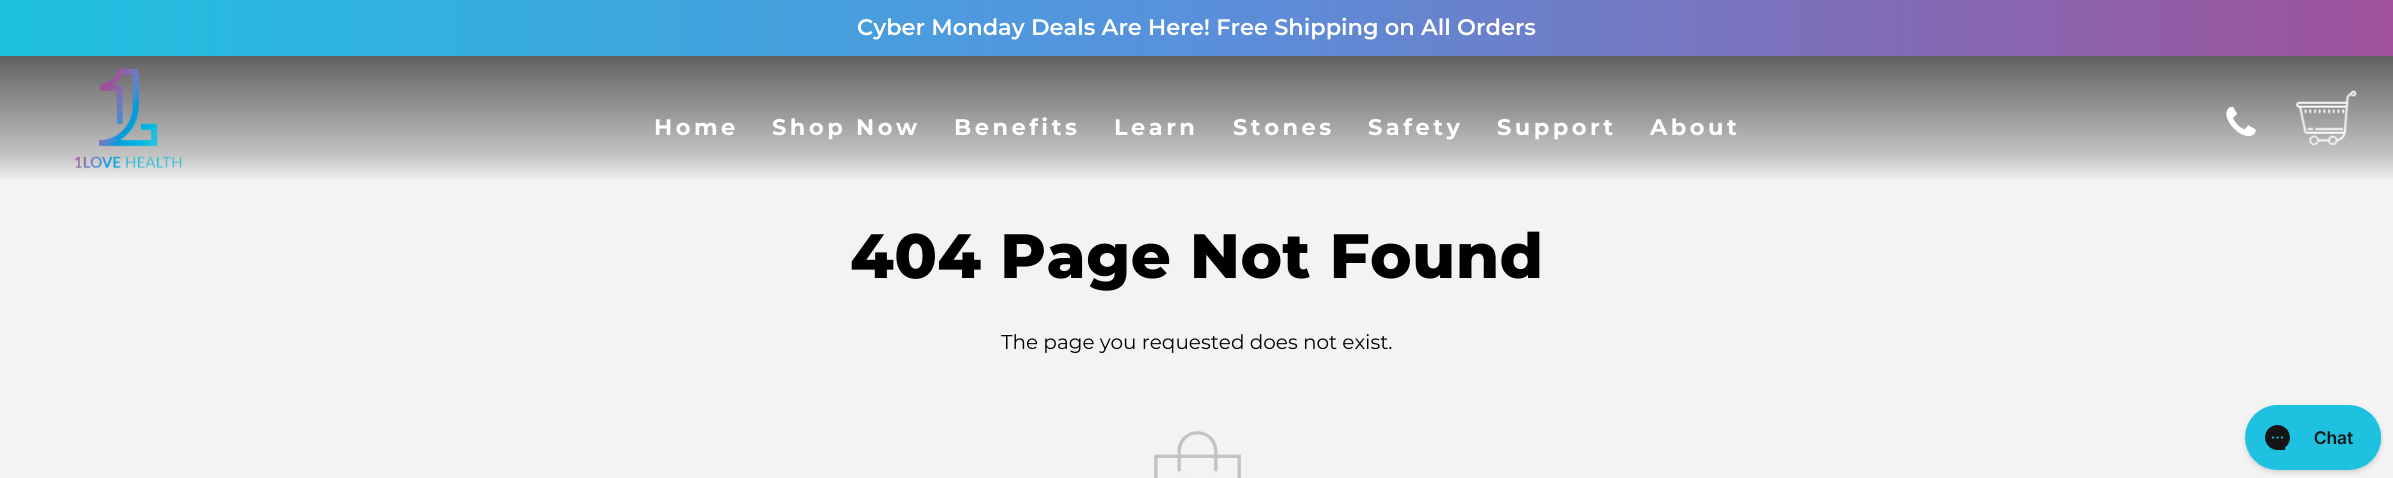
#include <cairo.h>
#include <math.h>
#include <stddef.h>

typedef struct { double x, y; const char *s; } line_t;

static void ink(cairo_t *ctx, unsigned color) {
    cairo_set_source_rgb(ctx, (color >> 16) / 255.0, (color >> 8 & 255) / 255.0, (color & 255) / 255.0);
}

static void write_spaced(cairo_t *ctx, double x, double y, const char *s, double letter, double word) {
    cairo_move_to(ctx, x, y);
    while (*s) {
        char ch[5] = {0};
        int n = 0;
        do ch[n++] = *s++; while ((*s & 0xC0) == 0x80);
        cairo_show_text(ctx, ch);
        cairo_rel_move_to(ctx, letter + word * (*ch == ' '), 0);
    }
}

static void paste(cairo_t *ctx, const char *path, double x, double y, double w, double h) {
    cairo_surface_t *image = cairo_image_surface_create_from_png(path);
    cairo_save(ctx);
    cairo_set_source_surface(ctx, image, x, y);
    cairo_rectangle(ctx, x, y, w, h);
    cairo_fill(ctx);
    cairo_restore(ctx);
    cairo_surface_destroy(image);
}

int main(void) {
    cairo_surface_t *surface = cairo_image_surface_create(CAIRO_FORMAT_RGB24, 2393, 478);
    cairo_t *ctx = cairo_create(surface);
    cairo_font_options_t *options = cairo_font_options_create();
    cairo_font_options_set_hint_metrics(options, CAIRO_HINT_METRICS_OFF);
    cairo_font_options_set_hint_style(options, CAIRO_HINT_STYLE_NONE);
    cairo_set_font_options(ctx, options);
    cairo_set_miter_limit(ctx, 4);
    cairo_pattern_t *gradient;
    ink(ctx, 0xF3F3F3);
    cairo_paint(ctx);
    gradient = cairo_pattern_create_linear(0, 28, 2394, 28);
    cairo_pattern_add_color_stop_rgba(gradient, 0, 0.118, 0.757, 0.878, 1);
    cairo_pattern_add_color_stop_rgba(gradient, 0.5, 0.349, 0.565, 0.863, 1);
    cairo_pattern_add_color_stop_rgba(gradient, 1, 0.624, 0.318, 0.608, 1);
    cairo_set_source(ctx, gradient);
    cairo_pattern_destroy(gradient);
    cairo_rectangle(ctx, 0, 0, 2393, 56);
    cairo_fill(ctx);
    cairo_select_font_face(ctx, "Montserrat SemiBold", CAIRO_FONT_SLANT_NORMAL, CAIRO_FONT_WEIGHT_NORMAL);
    cairo_set_font_size(ctx, 22.5);
    ink(ctx, 0xFFFFFF);
    cairo_move_to(ctx, 857, 35);
    cairo_show_text(ctx, "Cyber Monday Deals Are Here! Free Shipping on All Orders");
    gradient = cairo_pattern_create_linear(1197, 56, 1197, 181);
    cairo_pattern_add_color_stop_rgba(gradient, 0, 0.38, 0.38, 0.38, 1);
    cairo_pattern_add_color_stop_rgba(gradient, 0.2, 0.478, 0.478, 0.478, 1);
    cairo_pattern_add_color_stop_rgba(gradient, 0.4, 0.573, 0.573, 0.573, 1);
    cairo_pattern_add_color_stop_rgba(gradient, 0.6, 0.667, 0.667, 0.667, 1);
    cairo_pattern_add_color_stop_rgba(gradient, 0.8, 0.765, 0.765, 0.765, 1);
    cairo_pattern_add_color_stop_rgba(gradient, 1, 0.953, 0.953, 0.953, 1);
    cairo_set_source(ctx, gradient);
    cairo_pattern_destroy(gradient);
    cairo_rectangle(ctx, 0, 56, 2393, 124);
    cairo_fill(ctx);
    paste(ctx, "media/1.png", 75, 68, 107, 101);
    cairo_select_font_face(ctx, "Montserrat", CAIRO_FONT_SLANT_NORMAL, CAIRO_FONT_WEIGHT_BOLD);
    ink(ctx, 0xFFFFFF);
    {
        static const line_t items[] = {
            {654, 135, "Home"},
            {772, 135, "Shop Now"},
            {954, 135, "Benefits"},
            {1114, 135, "Learn"},
            {1233, 135, "Stones"},
            {1368, 135, "Safety"},
            {1497, 135, "Support"},
            {1650, 135, "About"},
        };
        for (size_t i = 0; i < sizeof items / sizeof *items; i++) {
            write_spaced(ctx, items[i].x, items[i].y, items[i].s, 3.5, 0);
        }
    }
    paste(ctx, "media/2.png", 2226, 106, 30, 31);
    paste(ctx, "media/3.png", 2296, 90, 61, 56);
    cairo_select_font_face(ctx, "Montserrat ExtraBold", CAIRO_FONT_SLANT_NORMAL, CAIRO_FONT_WEIGHT_NORMAL);
    cairo_set_font_size(ctx, 62.5);
    ink(ctx, 0x000000);
    write_spaced(ctx, 850, 278, "404 Page Not Found", 0.4, 0);
    cairo_select_font_face(ctx, "Montserrat", CAIRO_FONT_SLANT_NORMAL, CAIRO_FONT_WEIGHT_NORMAL);
    cairo_set_font_size(ctx, 20);
    cairo_move_to(ctx, 1001, 349);
    cairo_show_text(ctx, "The page you requested does not exist.");
    paste(ctx, "media/4.png", 1154, 431, 87, 47);
    paste(ctx, "media/5.png", 2242, 405, 142, 70);
    cairo_surface_write_to_png(surface, "image.png");
    cairo_font_options_destroy(options);
    cairo_destroy(ctx);
    cairo_surface_destroy(surface);
    return 0;
}
